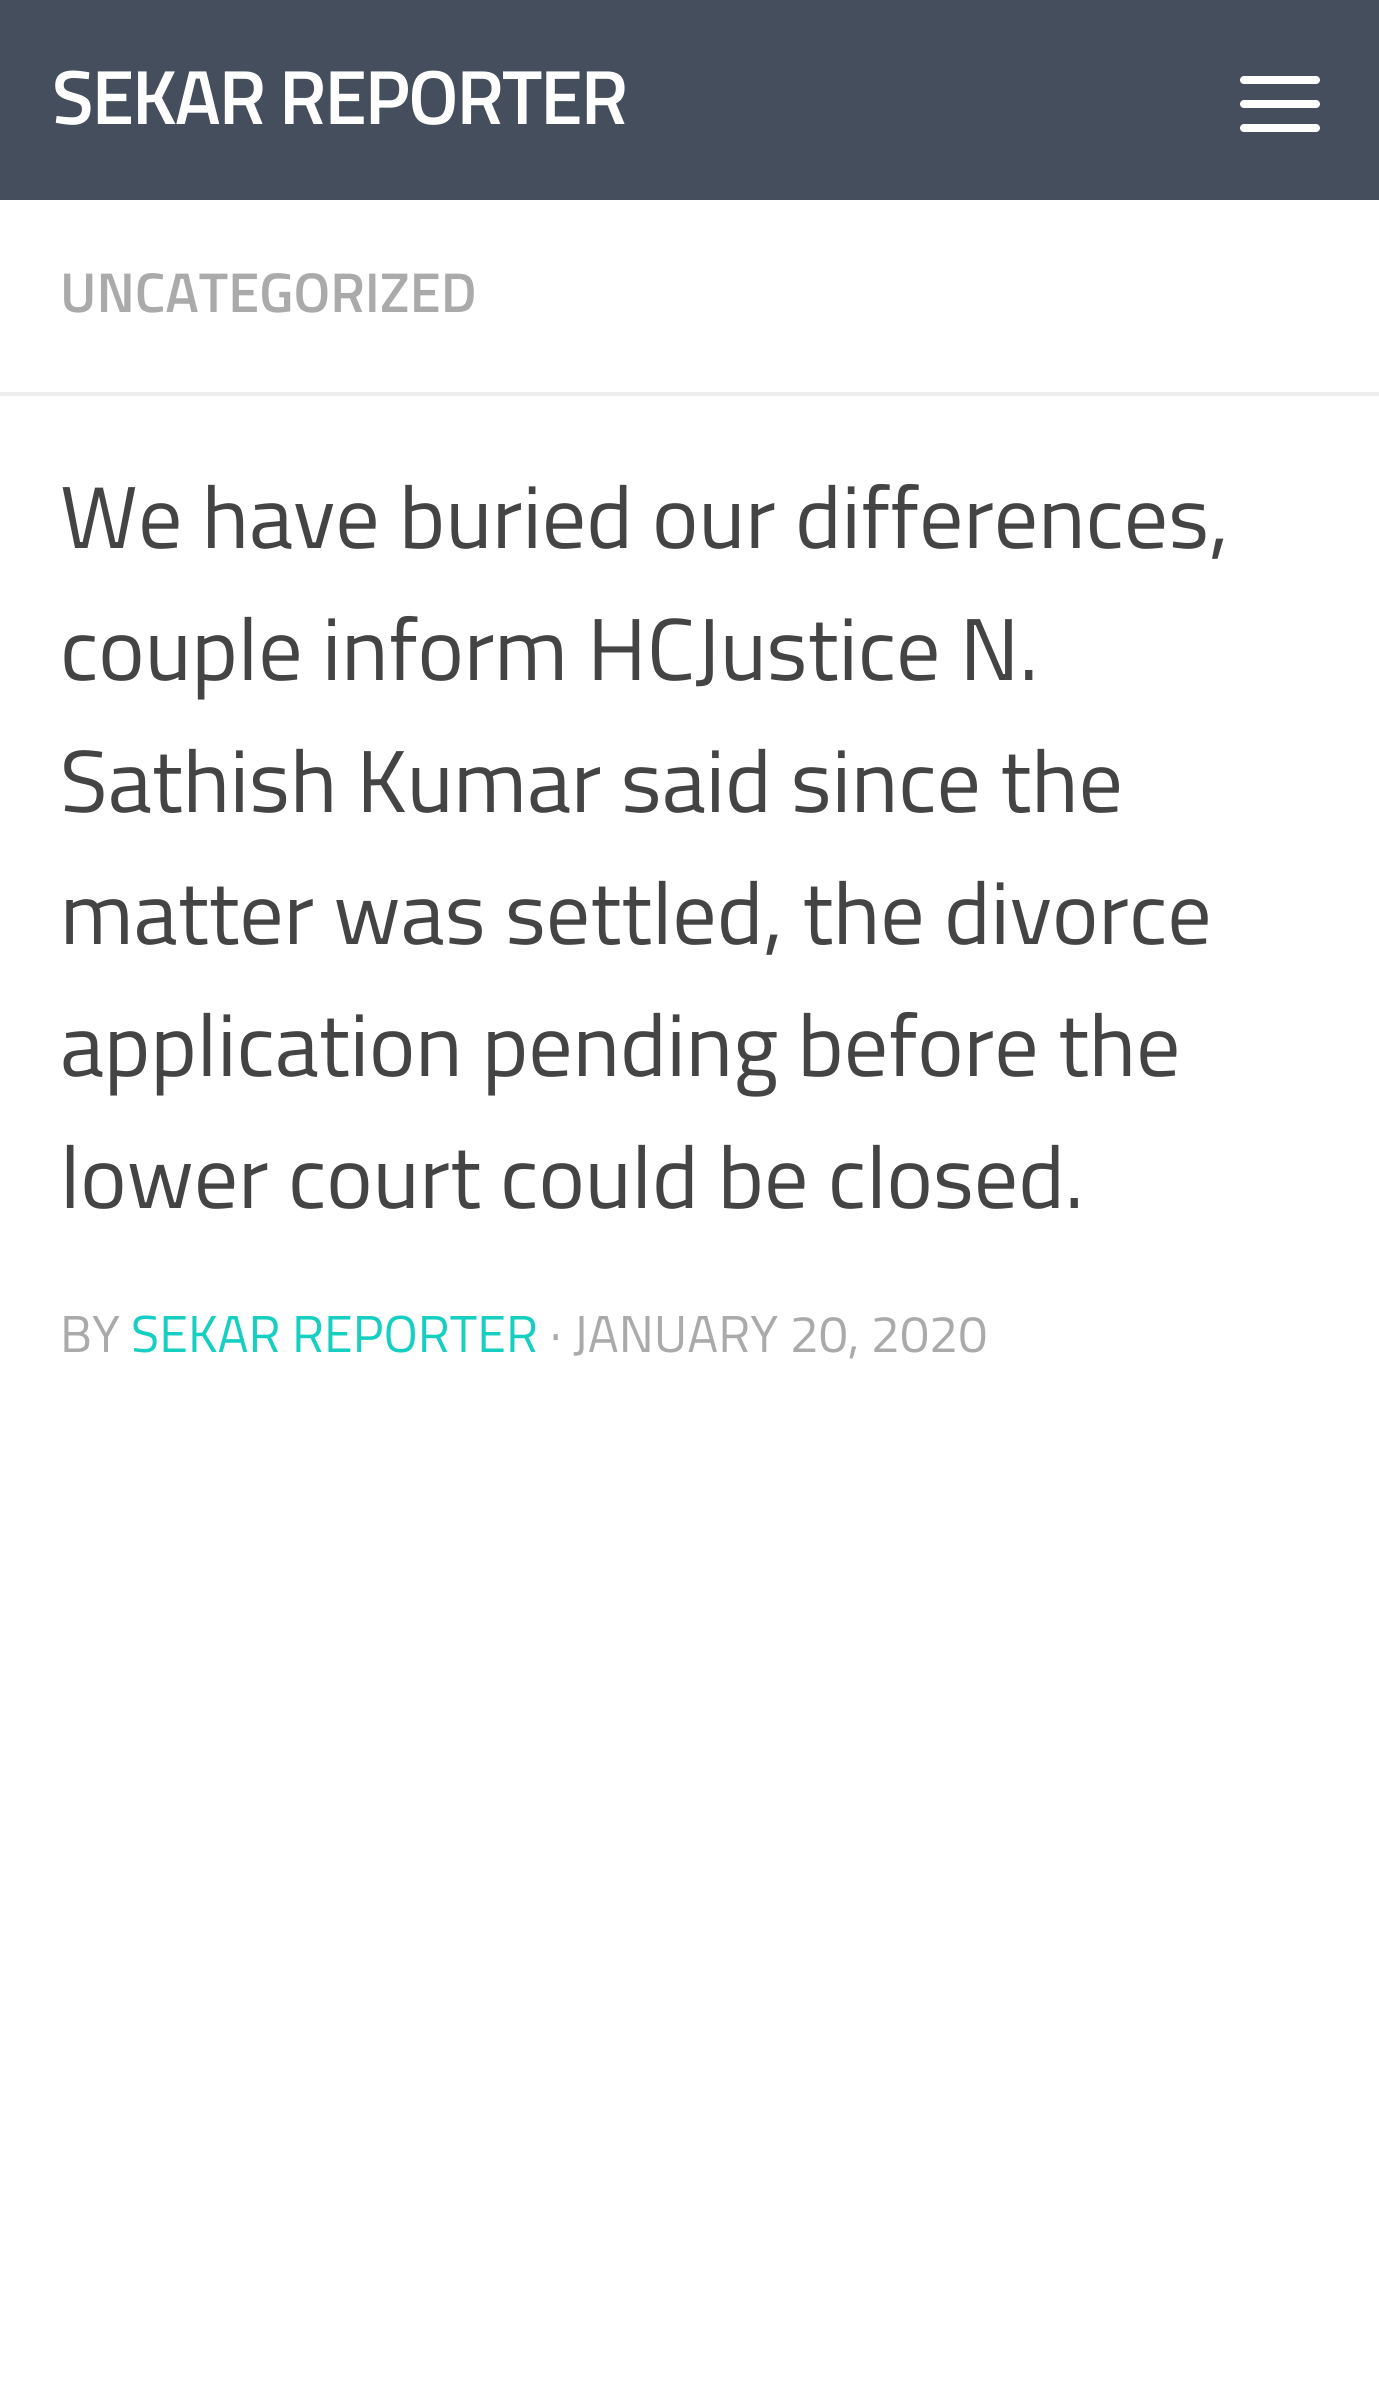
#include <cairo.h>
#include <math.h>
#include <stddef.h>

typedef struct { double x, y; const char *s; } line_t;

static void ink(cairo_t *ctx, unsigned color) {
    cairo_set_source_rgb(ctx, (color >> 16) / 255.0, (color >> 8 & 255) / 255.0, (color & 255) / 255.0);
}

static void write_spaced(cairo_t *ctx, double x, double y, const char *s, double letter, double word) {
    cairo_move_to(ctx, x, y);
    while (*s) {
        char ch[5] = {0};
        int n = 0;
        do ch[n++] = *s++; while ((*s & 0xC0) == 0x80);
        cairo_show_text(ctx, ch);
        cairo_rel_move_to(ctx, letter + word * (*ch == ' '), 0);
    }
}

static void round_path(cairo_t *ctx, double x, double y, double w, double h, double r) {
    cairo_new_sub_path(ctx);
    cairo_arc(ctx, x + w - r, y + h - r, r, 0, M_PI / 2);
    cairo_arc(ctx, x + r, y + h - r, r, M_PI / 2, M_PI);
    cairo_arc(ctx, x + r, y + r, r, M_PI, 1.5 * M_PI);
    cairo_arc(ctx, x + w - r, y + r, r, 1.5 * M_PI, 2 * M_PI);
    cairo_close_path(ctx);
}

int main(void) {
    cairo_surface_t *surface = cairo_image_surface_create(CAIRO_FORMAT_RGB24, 1379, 2404);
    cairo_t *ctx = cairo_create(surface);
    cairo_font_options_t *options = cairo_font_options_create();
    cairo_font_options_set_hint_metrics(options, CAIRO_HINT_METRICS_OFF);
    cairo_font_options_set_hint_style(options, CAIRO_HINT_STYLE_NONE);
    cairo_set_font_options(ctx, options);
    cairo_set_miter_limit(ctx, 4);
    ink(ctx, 0xFFFFFF);
    cairo_paint(ctx);
    ink(ctx, 0x454E5C);
    cairo_rectangle(ctx, 0, 0, 1379, 200);
    cairo_fill(ctx);
    cairo_select_font_face(ctx, "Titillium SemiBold", CAIRO_FONT_SLANT_NORMAL, CAIRO_FONT_WEIGHT_NORMAL);
    cairo_set_font_size(ctx, 76.75);
    ink(ctx, 0xFFFFFF);
    write_spaced(ctx, 52, 124, "SEKAR REPORTER", -2, 0);
    round_path(ctx, 1240, 76, 80, 8, 4);
    cairo_fill(ctx);
    round_path(ctx, 1240, 100, 80, 8, 4);
    cairo_fill(ctx);
    round_path(ctx, 1240, 124, 80, 8, 4);
    cairo_fill(ctx);
    ink(ctx, 0xEEEEEE);
    cairo_rectangle(ctx, 0, 392, 1379, 4);
    cairo_fill(ctx);
    cairo_set_font_size(ctx, 56);
    ink(ctx, 0xAAAAAA);
    cairo_move_to(ctx, 60, 312);
    cairo_show_text(ctx, "UNCATEGORIZED");
    cairo_select_font_face(ctx, "Titillium", CAIRO_FONT_SLANT_NORMAL, CAIRO_FONT_WEIGHT_NORMAL);
    cairo_set_font_size(ctx, 88);
    ink(ctx, 0x444444);
    {
        static const line_t items[] = {
            {60, 548, "We have buried our differences,"},
            {60, 680, "couple inform HCJustice N."},
            {60, 812, "Sathish Kumar said since the"},
            {60, 944, "matter was settled, the divorce"},
            {60, 1076, "application pending before the"},
            {60, 1208, "lower court could be closed."},
        };
        for (size_t i = 0; i < sizeof items / sizeof *items; i++) {
            cairo_move_to(ctx, items[i].x, items[i].y);
            cairo_show_text(ctx, items[i].s);
        }
    }
    cairo_set_font_size(ctx, 52);
    ink(ctx, 0xAAAAAA);
    cairo_move_to(ctx, 60, 1352);
    cairo_show_text(ctx, "BY");
    ink(ctx, 0x16CFC1);
    cairo_move_to(ctx, 131, 1352);
    cairo_show_text(ctx, "SEKAR REPORTER");
    ink(ctx, 0xAAAAAA);
    cairo_move_to(ctx, 550, 1352);
    cairo_show_text(ctx, "· JANUARY 20, 2020");
    cairo_surface_write_to_png(surface, "image.png");
    cairo_font_options_destroy(options);
    cairo_destroy(ctx);
    cairo_surface_destroy(surface);
    return 0;
}
